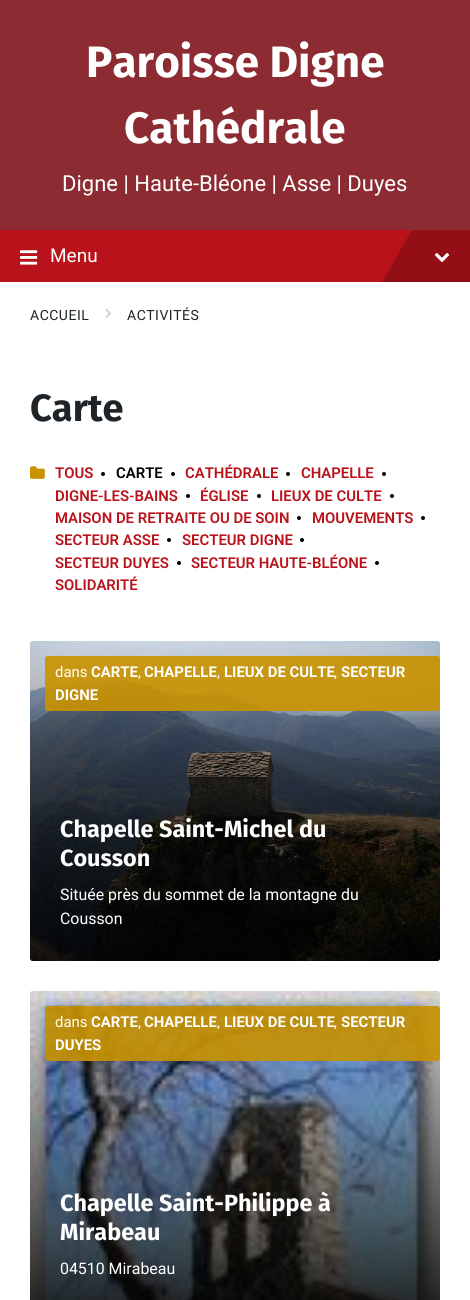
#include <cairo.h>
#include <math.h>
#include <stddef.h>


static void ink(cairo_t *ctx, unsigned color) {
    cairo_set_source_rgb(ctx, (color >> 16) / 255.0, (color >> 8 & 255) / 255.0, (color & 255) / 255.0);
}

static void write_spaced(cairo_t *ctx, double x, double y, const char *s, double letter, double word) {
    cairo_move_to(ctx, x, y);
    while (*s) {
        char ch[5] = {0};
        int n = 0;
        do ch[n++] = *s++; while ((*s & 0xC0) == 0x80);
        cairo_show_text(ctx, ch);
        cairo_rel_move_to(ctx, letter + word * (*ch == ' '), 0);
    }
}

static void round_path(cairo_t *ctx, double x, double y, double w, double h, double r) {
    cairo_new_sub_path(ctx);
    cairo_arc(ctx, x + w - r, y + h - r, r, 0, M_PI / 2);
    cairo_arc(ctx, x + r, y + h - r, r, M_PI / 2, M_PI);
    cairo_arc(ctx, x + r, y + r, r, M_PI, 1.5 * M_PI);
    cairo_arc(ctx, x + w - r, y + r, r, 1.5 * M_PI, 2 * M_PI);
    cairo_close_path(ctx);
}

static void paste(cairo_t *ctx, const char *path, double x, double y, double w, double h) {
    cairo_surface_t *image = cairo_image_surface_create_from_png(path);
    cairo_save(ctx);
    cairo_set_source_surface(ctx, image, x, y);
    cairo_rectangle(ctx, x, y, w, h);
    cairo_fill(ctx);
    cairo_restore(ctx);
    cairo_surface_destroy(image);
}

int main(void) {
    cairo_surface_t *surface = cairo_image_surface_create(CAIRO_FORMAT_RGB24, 470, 1300);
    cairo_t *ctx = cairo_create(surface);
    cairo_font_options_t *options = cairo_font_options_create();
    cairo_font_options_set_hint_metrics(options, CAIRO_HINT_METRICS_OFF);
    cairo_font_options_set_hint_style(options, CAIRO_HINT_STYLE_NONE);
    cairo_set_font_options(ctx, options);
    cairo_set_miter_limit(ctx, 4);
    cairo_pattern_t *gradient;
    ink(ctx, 0xFFFFFF);
    cairo_paint(ctx);
    ink(ctx, 0x8C2C32);
    cairo_rectangle(ctx, 0, 0, 470, 230);
    cairo_fill(ctx);
    cairo_select_font_face(ctx, "Fira Sans", CAIRO_FONT_SLANT_NORMAL, CAIRO_FONT_WEIGHT_BOLD);
    cairo_set_font_size(ctx, 44);
    ink(ctx, 0xFFFFFF);
    cairo_move_to(ctx, 86, 77);
    cairo_show_text(ctx, "Paroisse Digne");
    cairo_move_to(ctx, 124, 143);
    cairo_show_text(ctx, "Cathédrale");
    cairo_select_font_face(ctx, "Roboto", CAIRO_FONT_SLANT_NORMAL, CAIRO_FONT_WEIGHT_NORMAL);
    cairo_set_font_size(ctx, 22);
    cairo_move_to(ctx, 62, 191);
    cairo_show_text(ctx, "Digne | Haute-Bléone | Asse | Duyes");
    ink(ctx, 0xB9121B);
    cairo_rectangle(ctx, 0, 230, 412, 52);
    cairo_fill(ctx);
    paste(ctx, "media/1.png", 20, 250, 18, 15);
    cairo_set_font_size(ctx, 19);
    ink(ctx, 0xFFFFFF);
    cairo_move_to(ctx, 50, 262);
    cairo_show_text(ctx, "Menu");
    cairo_save(ctx);
    cairo_rectangle(ctx, 0, 230, 470, 52);
    cairo_clip(ctx);
    ink(ctx, 0x940E16);
    cairo_new_path(ctx);
    cairo_move_to(ctx, 431, 197);
    cairo_line_to(ctx, 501, 237);
    cairo_line_to(ctx, 449, 327);
    cairo_line_to(ctx, 379, 287);
    cairo_close_path(ctx);
    cairo_fill(ctx);
    cairo_restore(ctx);
    paste(ctx, "media/2.png", 434, 253, 16, 10);
    cairo_set_font_size(ctx, 14);
    ink(ctx, 0x1E2427);
    write_spaced(ctx, 30, 320, "ACCUEIL", 0.5, 0);
    paste(ctx, "media/3.png", 105, 309, 7, 9);
    write_spaced(ctx, 127, 320, "ACTIVITÉS", 0.5, 0);
    cairo_select_font_face(ctx, "Fira Sans", CAIRO_FONT_SLANT_NORMAL, CAIRO_FONT_WEIGHT_BOLD);
    cairo_set_font_size(ctx, 38);
    cairo_move_to(ctx, 30, 421);
    cairo_show_text(ctx, "Carte");
    paste(ctx, "media/4.png", 30, 466, 15, 13);
    cairo_select_font_face(ctx, "Roboto SemiBold", CAIRO_FONT_SLANT_NORMAL, CAIRO_FONT_WEIGHT_NORMAL);
    cairo_set_font_size(ctx, 14.9);
    ink(ctx, 0xB9121B);
    cairo_move_to(ctx, 55, 478);
    cairo_show_text(ctx, "TOUS");
    ink(ctx, 0x000000);
    cairo_new_path(ctx);
    cairo_arc(ctx, 103, 474, 2, 0, 2 * M_PI);
    cairo_fill(ctx);
    cairo_move_to(ctx, 116, 478);
    cairo_show_text(ctx, "CARTE");
    cairo_new_path(ctx);
    cairo_arc(ctx, 173, 474, 2, 0, 2 * M_PI);
    cairo_fill(ctx);
    ink(ctx, 0xB9121B);
    cairo_move_to(ctx, 185, 478);
    cairo_show_text(ctx, "CATHÉDRALE");
    ink(ctx, 0x000000);
    cairo_new_path(ctx);
    cairo_arc(ctx, 288, 474, 2, 0, 2 * M_PI);
    cairo_fill(ctx);
    ink(ctx, 0xB9121B);
    cairo_move_to(ctx, 301, 478);
    cairo_show_text(ctx, "CHAPELLE");
    ink(ctx, 0x000000);
    cairo_new_path(ctx);
    cairo_arc(ctx, 384, 474, 2, 0, 2 * M_PI);
    cairo_fill(ctx);
    ink(ctx, 0xB9121B);
    cairo_move_to(ctx, 55, 501);
    cairo_show_text(ctx, "DIGNE-LES-BAINS");
    ink(ctx, 0x000000);
    cairo_new_path(ctx);
    cairo_arc(ctx, 188, 496, 2, 0, 2 * M_PI);
    cairo_fill(ctx);
    ink(ctx, 0xB9121B);
    cairo_move_to(ctx, 200, 501);
    cairo_show_text(ctx, "ÉGLISE");
    ink(ctx, 0x000000);
    cairo_new_path(ctx);
    cairo_arc(ctx, 259, 496, 2, 0, 2 * M_PI);
    cairo_fill(ctx);
    ink(ctx, 0xB9121B);
    cairo_move_to(ctx, 271, 501);
    cairo_show_text(ctx, "LIEUX DE CULTE");
    ink(ctx, 0x000000);
    cairo_new_path(ctx);
    cairo_arc(ctx, 392, 496, 2, 0, 2 * M_PI);
    cairo_fill(ctx);
    ink(ctx, 0xB9121B);
    cairo_move_to(ctx, 55, 523);
    cairo_show_text(ctx, "MAISON DE RETRAITE OU DE SOIN");
    ink(ctx, 0x000000);
    cairo_new_path(ctx);
    cairo_arc(ctx, 299, 518, 2, 0, 2 * M_PI);
    cairo_fill(ctx);
    ink(ctx, 0xB9121B);
    cairo_move_to(ctx, 312, 523);
    cairo_show_text(ctx, "MOUVEMENTS");
    ink(ctx, 0x000000);
    cairo_new_path(ctx);
    cairo_arc(ctx, 423, 518, 2, 0, 2 * M_PI);
    cairo_fill(ctx);
    ink(ctx, 0xB9121B);
    cairo_move_to(ctx, 55, 545);
    cairo_show_text(ctx, "SECTEUR ASSE");
    ink(ctx, 0x000000);
    cairo_new_path(ctx);
    cairo_arc(ctx, 169, 540, 2, 0, 2 * M_PI);
    cairo_fill(ctx);
    ink(ctx, 0xB9121B);
    cairo_move_to(ctx, 182, 545);
    cairo_show_text(ctx, "SECTEUR DIGNE");
    ink(ctx, 0x000000);
    cairo_new_path(ctx);
    cairo_arc(ctx, 302, 540, 2, 0, 2 * M_PI);
    cairo_fill(ctx);
    ink(ctx, 0xB9121B);
    cairo_move_to(ctx, 55, 568);
    cairo_show_text(ctx, "SECTEUR DUYES");
    ink(ctx, 0x000000);
    cairo_new_path(ctx);
    cairo_arc(ctx, 179, 563, 2, 0, 2 * M_PI);
    cairo_fill(ctx);
    ink(ctx, 0xB9121B);
    cairo_move_to(ctx, 191, 568);
    cairo_show_text(ctx, "SECTEUR HAUTE-BLÉONE");
    ink(ctx, 0x000000);
    cairo_new_path(ctx);
    cairo_arc(ctx, 377, 563, 2, 0, 2 * M_PI);
    cairo_fill(ctx);
    ink(ctx, 0xB9121B);
    cairo_move_to(ctx, 55, 590);
    cairo_show_text(ctx, "SOLIDARITÉ");
    paste(ctx, "media/5.png", 30, 641, 410, 320);
    gradient = cairo_pattern_create_linear(235, 641, 235, 961);
    cairo_pattern_add_color_stop_rgba(gradient, 0, 0, 0, 0, 0);
    cairo_pattern_add_color_stop_rgba(gradient, 1, 0, 0, 0, 0.85);
    cairo_set_source(ctx, gradient);
    cairo_pattern_destroy(gradient);
    round_path(ctx, 30, 641, 410, 320, 3);
    cairo_fill(ctx);
    cairo_set_source_rgba(ctx, 0.788, 0.576, 0, 0.9);
    round_path(ctx, 45, 656, 395, 55, 3);
    cairo_fill(ctx);
    cairo_select_font_face(ctx, "Roboto", CAIRO_FONT_SLANT_NORMAL, CAIRO_FONT_WEIGHT_NORMAL);
    ink(ctx, 0xFFFFFF);
    cairo_move_to(ctx, 55, 677);
    cairo_show_text(ctx, "dans");
    cairo_select_font_face(ctx, "Roboto", CAIRO_FONT_SLANT_NORMAL, CAIRO_FONT_WEIGHT_BOLD);
    cairo_move_to(ctx, 91, 677);
    cairo_show_text(ctx, "CARTE");
    cairo_select_font_face(ctx, "Roboto", CAIRO_FONT_SLANT_NORMAL, CAIRO_FONT_WEIGHT_NORMAL);
    cairo_move_to(ctx, 138, 677);
    cairo_show_text(ctx, ",");
    cairo_select_font_face(ctx, "Roboto", CAIRO_FONT_SLANT_NORMAL, CAIRO_FONT_WEIGHT_BOLD);
    cairo_move_to(ctx, 144, 677);
    cairo_show_text(ctx, "CHAPELLE");
    cairo_select_font_face(ctx, "Roboto", CAIRO_FONT_SLANT_NORMAL, CAIRO_FONT_WEIGHT_NORMAL);
    cairo_move_to(ctx, 217, 677);
    cairo_show_text(ctx, ",");
    cairo_select_font_face(ctx, "Roboto", CAIRO_FONT_SLANT_NORMAL, CAIRO_FONT_WEIGHT_BOLD);
    cairo_move_to(ctx, 224, 677);
    cairo_show_text(ctx, "LIEUX DE CULTE");
    cairo_select_font_face(ctx, "Roboto", CAIRO_FONT_SLANT_NORMAL, CAIRO_FONT_WEIGHT_NORMAL);
    cairo_move_to(ctx, 334, 677);
    cairo_show_text(ctx, ",");
    cairo_select_font_face(ctx, "Roboto", CAIRO_FONT_SLANT_NORMAL, CAIRO_FONT_WEIGHT_BOLD);
    cairo_move_to(ctx, 341, 677);
    cairo_show_text(ctx, "SECTEUR");
    cairo_move_to(ctx, 55, 700);
    cairo_show_text(ctx, "DIGNE");
    cairo_select_font_face(ctx, "Fira Sans", CAIRO_FONT_SLANT_NORMAL, CAIRO_FONT_WEIGHT_BOLD);
    cairo_set_font_size(ctx, 23.4);
    cairo_move_to(ctx, 60, 837);
    cairo_show_text(ctx, "Chapelle Saint-Michel du");
    cairo_move_to(ctx, 60, 866);
    cairo_show_text(ctx, "Cousson");
    cairo_select_font_face(ctx, "Roboto", CAIRO_FONT_SLANT_NORMAL, CAIRO_FONT_WEIGHT_NORMAL);
    cairo_set_font_size(ctx, 15.9);
    cairo_move_to(ctx, 60, 900);
    cairo_show_text(ctx, "Située près du sommet de la montagne du");
    cairo_move_to(ctx, 60, 924);
    cairo_show_text(ctx, "Cousson");
    paste(ctx, "media/6.png", 30, 991, 410, 309);
    gradient = cairo_pattern_create_linear(235, 991, 235, 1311);
    cairo_pattern_add_color_stop_rgba(gradient, 0, 0, 0, 0, 0);
    cairo_pattern_add_color_stop_rgba(gradient, 1, 0, 0, 0, 0.85);
    cairo_set_source(ctx, gradient);
    cairo_pattern_destroy(gradient);
    cairo_rectangle(ctx, 30, 999, 410, 301);
    cairo_fill(ctx);
    cairo_set_source_rgba(ctx, 0.788, 0.576, 0, 0.9);
    round_path(ctx, 45, 1006, 395, 55, 3);
    cairo_fill(ctx);
    cairo_set_font_size(ctx, 14.9);
    ink(ctx, 0xFFFFFF);
    cairo_move_to(ctx, 55, 1027);
    cairo_show_text(ctx, "dans");
    cairo_select_font_face(ctx, "Roboto", CAIRO_FONT_SLANT_NORMAL, CAIRO_FONT_WEIGHT_BOLD);
    cairo_move_to(ctx, 91, 1027);
    cairo_show_text(ctx, "CARTE");
    cairo_select_font_face(ctx, "Roboto", CAIRO_FONT_SLANT_NORMAL, CAIRO_FONT_WEIGHT_NORMAL);
    cairo_move_to(ctx, 138, 1027);
    cairo_show_text(ctx, ",");
    cairo_select_font_face(ctx, "Roboto", CAIRO_FONT_SLANT_NORMAL, CAIRO_FONT_WEIGHT_BOLD);
    cairo_move_to(ctx, 144, 1027);
    cairo_show_text(ctx, "CHAPELLE");
    cairo_select_font_face(ctx, "Roboto", CAIRO_FONT_SLANT_NORMAL, CAIRO_FONT_WEIGHT_NORMAL);
    cairo_move_to(ctx, 217, 1027);
    cairo_show_text(ctx, ",");
    cairo_select_font_face(ctx, "Roboto", CAIRO_FONT_SLANT_NORMAL, CAIRO_FONT_WEIGHT_BOLD);
    cairo_move_to(ctx, 224, 1027);
    cairo_show_text(ctx, "LIEUX DE CULTE");
    cairo_select_font_face(ctx, "Roboto", CAIRO_FONT_SLANT_NORMAL, CAIRO_FONT_WEIGHT_NORMAL);
    cairo_move_to(ctx, 334, 1027);
    cairo_show_text(ctx, ",");
    cairo_select_font_face(ctx, "Roboto", CAIRO_FONT_SLANT_NORMAL, CAIRO_FONT_WEIGHT_BOLD);
    cairo_move_to(ctx, 341, 1027);
    cairo_show_text(ctx, "SECTEUR");
    cairo_move_to(ctx, 55, 1050);
    cairo_show_text(ctx, "DUYES");
    cairo_select_font_face(ctx, "Fira Sans", CAIRO_FONT_SLANT_NORMAL, CAIRO_FONT_WEIGHT_BOLD);
    cairo_set_font_size(ctx, 23.4);
    cairo_move_to(ctx, 60, 1211);
    cairo_show_text(ctx, "Chapelle Saint-Philippe à");
    cairo_move_to(ctx, 60, 1240);
    cairo_show_text(ctx, "Mirabeau");
    cairo_select_font_face(ctx, "Roboto", CAIRO_FONT_SLANT_NORMAL, CAIRO_FONT_WEIGHT_NORMAL);
    cairo_set_font_size(ctx, 15.9);
    cairo_move_to(ctx, 60, 1274);
    cairo_show_text(ctx, "04510 Mirabeau");
    cairo_surface_write_to_png(surface, "image.png");
    cairo_font_options_destroy(options);
    cairo_destroy(ctx);
    cairo_surface_destroy(surface);
    return 0;
}
